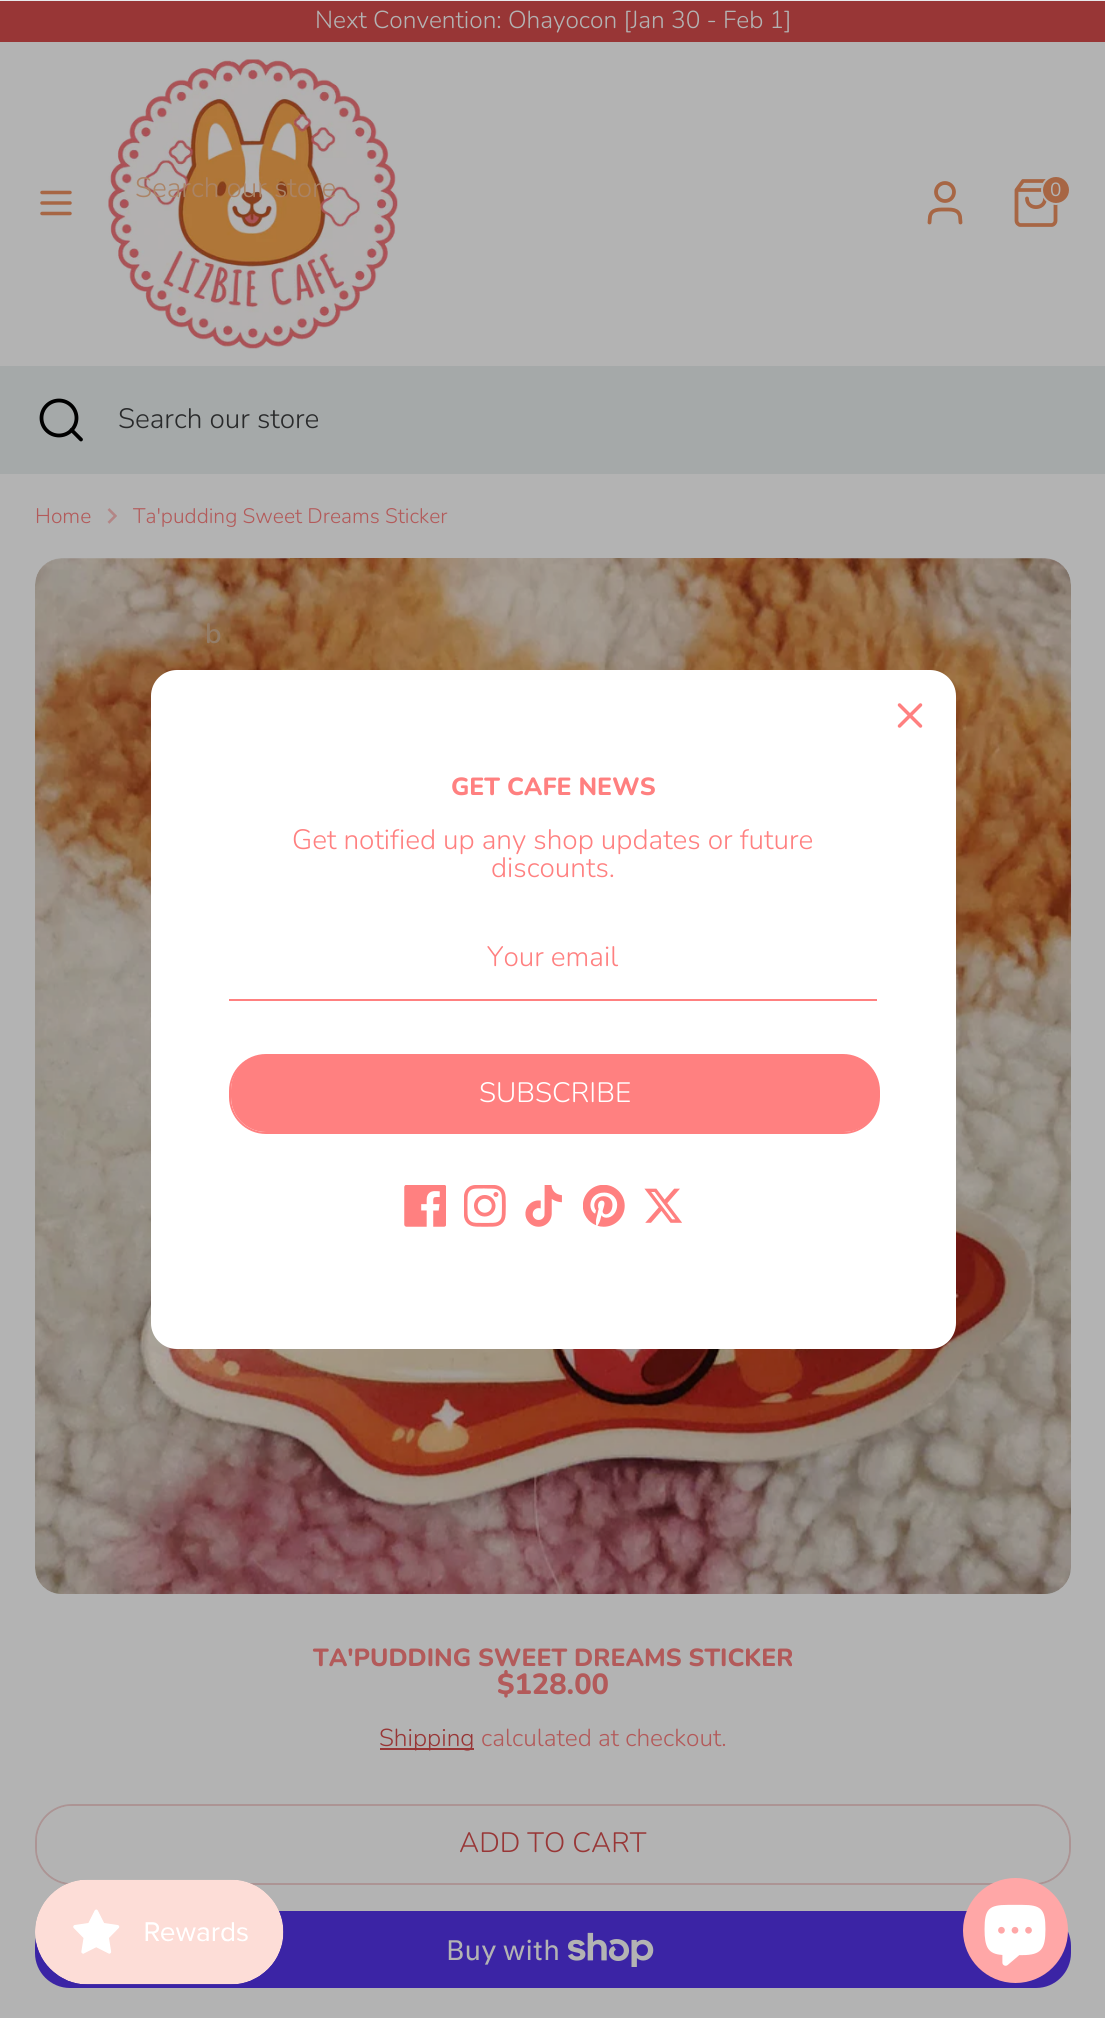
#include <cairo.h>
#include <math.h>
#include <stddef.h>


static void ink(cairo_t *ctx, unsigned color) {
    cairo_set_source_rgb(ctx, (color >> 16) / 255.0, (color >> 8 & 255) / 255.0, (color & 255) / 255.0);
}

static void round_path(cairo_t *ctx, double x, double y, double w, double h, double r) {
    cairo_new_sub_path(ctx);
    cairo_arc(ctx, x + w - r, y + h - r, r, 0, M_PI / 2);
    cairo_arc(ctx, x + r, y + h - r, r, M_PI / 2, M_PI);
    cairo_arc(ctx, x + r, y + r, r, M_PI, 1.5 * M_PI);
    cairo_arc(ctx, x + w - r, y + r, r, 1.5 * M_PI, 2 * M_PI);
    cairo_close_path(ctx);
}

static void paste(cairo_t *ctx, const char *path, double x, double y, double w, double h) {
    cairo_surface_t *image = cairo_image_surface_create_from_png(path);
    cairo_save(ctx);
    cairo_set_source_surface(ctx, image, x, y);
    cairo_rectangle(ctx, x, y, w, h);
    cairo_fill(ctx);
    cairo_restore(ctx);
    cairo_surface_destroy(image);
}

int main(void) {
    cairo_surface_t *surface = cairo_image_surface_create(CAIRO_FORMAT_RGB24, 1105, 2018);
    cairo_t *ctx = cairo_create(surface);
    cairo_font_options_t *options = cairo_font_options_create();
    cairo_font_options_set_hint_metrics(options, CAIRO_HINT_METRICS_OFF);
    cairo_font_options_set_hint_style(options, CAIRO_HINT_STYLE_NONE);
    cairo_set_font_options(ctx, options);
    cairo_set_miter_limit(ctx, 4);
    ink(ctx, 0xB3B3B3);
    cairo_paint(ctx);
    ink(ctx, 0xE8E9EB);
    cairo_rectangle(ctx, 0, 0, 1105, 1);
    cairo_fill(ctx);
    ink(ctx, 0x983636);
    cairo_rectangle(ctx, 0, 1, 1105, 41);
    cairo_fill(ctx);
    cairo_select_font_face(ctx, "Nunito Light", CAIRO_FONT_SLANT_NORMAL, CAIRO_FONT_WEIGHT_NORMAL);
    cairo_set_font_size(ctx, 24.5);
    ink(ctx, 0xB3B3B3);
    cairo_move_to(ctx, 315, 28);
    cairo_show_text(ctx, "Next Convention: Ohayocon [Jan 30 - Feb 1]");
    paste(ctx, "media/1.png", 108, 59, 290, 290);
    cairo_set_font_size(ctx, 28);
    ink(ctx, 0xAB8466);
    cairo_move_to(ctx, 135, 197);
    cairo_show_text(ctx, "Search our store");
    paste(ctx, "media/9.png", 35, 558, 1036, 1036);
    cairo_select_font_face(ctx, "Nunito SemiBold", CAIRO_FONT_SLANT_NORMAL, CAIRO_FONT_WEIGHT_NORMAL);
    ink(ctx, 0x947D68);
    cairo_move_to(ctx, 205, 643);
    cairo_show_text(ctx, "b");
    ink(ctx, 0xA5A9A9);
    cairo_rectangle(ctx, 0, 366, 1105, 108);
    cairo_fill(ctx);
    cairo_arc(ctx, 59, 418, 17.5, 0, 2 * M_PI);
    ink(ctx, 0x000000);
    cairo_set_line_width(ctx, 3.8);
    cairo_stroke(ctx);
    cairo_new_path(ctx);
    cairo_move_to(ctx, 81, 439.5);
    cairo_line_to(ctx, 71.5, 430);
    cairo_set_line_cap(ctx, CAIRO_LINE_CAP_ROUND);
    cairo_set_line_join(ctx, CAIRO_LINE_JOIN_ROUND);
    cairo_stroke(ctx);
    cairo_select_font_face(ctx, "Nunito Light", CAIRO_FONT_SLANT_NORMAL, CAIRO_FONT_WEIGHT_NORMAL);
    ink(ctx, 0x292A2B);
    cairo_move_to(ctx, 118, 428);
    cairo_show_text(ctx, "Search our store");
    cairo_new_path(ctx);
    cairo_move_to(ctx, 42, 203);
    cairo_line_to(ctx, 70, 203);
    cairo_move_to(ctx, 42, 192.5);
    cairo_line_to(ctx, 70, 192.5);
    cairo_move_to(ctx, 42, 213.5);
    cairo_line_to(ctx, 70, 213.5);
    ink(ctx, 0xA76644);
    cairo_set_line_width(ctx, 3.5);
    cairo_stroke(ctx);
    cairo_new_path(ctx);
    cairo_move_to(ctx, 960.5, 222.5);
    cairo_line_to(ctx, 960, 216.5);
    cairo_curve_to(ctx, 958.5, 209, 951, 209.5, 945, 209.5);
    cairo_curve_to(ctx, 939, 209.5, 931.5, 209, 930, 216.5);
    cairo_line_to(ctx, 929.5, 222.5);
    cairo_set_line_width(ctx, 3.8);
    cairo_stroke(ctx);
    cairo_arc(ctx, 945, 192, 9, 0, 2 * M_PI);
    cairo_set_line_cap(ctx, CAIRO_LINE_CAP_BUTT);
    cairo_set_line_join(ctx, CAIRO_LINE_JOIN_MITER);
    cairo_stroke(ctx);
    cairo_new_path(ctx);
    cairo_move_to(ctx, 1023, 181);
    cairo_line_to(ctx, 1016.5, 190);
    cairo_line_to(ctx, 1016.5, 220.5);
    cairo_curve_to(ctx, 1016.5, 223, 1018.5, 225, 1020.5, 225);
    cairo_line_to(ctx, 1051.5, 225);
    cairo_curve_to(ctx, 1053.5, 225, 1055.5, 223, 1055.5, 220.5);
    cairo_line_to(ctx, 1055.5, 190);
    cairo_line_to(ctx, 1049, 181);
    cairo_close_path(ctx);
    cairo_move_to(ctx, 1016.5, 190);
    cairo_line_to(ctx, 1055.5, 190);
    cairo_move_to(ctx, 1045, 198.5);
    cairo_curve_to(ctx, 1045, 210, 1027, 210, 1027, 198.5);
    cairo_set_line_cap(ctx, CAIRO_LINE_CAP_ROUND);
    cairo_set_line_join(ctx, CAIRO_LINE_JOIN_ROUND);
    cairo_stroke(ctx);
    cairo_arc(ctx, 1056, 190, 14, 0, 2 * M_PI);
    cairo_fill_preserve(ctx);
    ink(ctx, 0xB3B3B3);
    cairo_set_line_width(ctx, 2);
    cairo_set_line_cap(ctx, CAIRO_LINE_CAP_BUTT);
    cairo_set_line_join(ctx, CAIRO_LINE_JOIN_MITER);
    cairo_stroke(ctx);
    cairo_select_font_face(ctx, "Nunito", CAIRO_FONT_SLANT_NORMAL, CAIRO_FONT_WEIGHT_NORMAL);
    cairo_set_font_size(ctx, 19);
    cairo_move_to(ctx, 1050, 196);
    cairo_show_text(ctx, "0");
    cairo_select_font_face(ctx, "Nunito Light", CAIRO_FONT_SLANT_NORMAL, CAIRO_FONT_WEIGHT_NORMAL);
    cairo_set_font_size(ctx, 21);
    ink(ctx, 0xB35A5A);
    cairo_move_to(ctx, 35, 523);
    cairo_show_text(ctx, "Home");
    paste(ctx, "media/2.png", 107, 508, 10, 16);
    cairo_move_to(ctx, 133, 523);
    cairo_show_text(ctx, "Ta'pudding Sweet Dreams Sticker");
    ink(ctx, 0xFFFFFF);
    round_path(ctx, 151, 670, 805, 679, 26);
    cairo_fill(ctx);
    cairo_new_path(ctx);
    cairo_move_to(ctx, 920.5, 705);
    cairo_line_to(ctx, 899.5, 726);
    cairo_move_to(ctx, 899.5, 705);
    cairo_line_to(ctx, 920.5, 726);
    ink(ctx, 0xFF8080);
    cairo_set_line_width(ctx, 3.5);
    cairo_set_line_cap(ctx, CAIRO_LINE_CAP_ROUND);
    cairo_stroke(ctx);
    cairo_select_font_face(ctx, "Nunito ExtraBold", CAIRO_FONT_SLANT_NORMAL, CAIRO_FONT_WEIGHT_NORMAL);
    cairo_set_font_size(ctx, 24.75);
    cairo_move_to(ctx, 451, 795);
    cairo_show_text(ctx, "GET CAFE NEWS");
    cairo_select_font_face(ctx, "Nunito Light", CAIRO_FONT_SLANT_NORMAL, CAIRO_FONT_WEIGHT_NORMAL);
    cairo_set_font_size(ctx, 28);
    cairo_move_to(ctx, 292, 849);
    cairo_show_text(ctx, "Get notified up any shop updates or future");
    cairo_move_to(ctx, 491, 877);
    cairo_show_text(ctx, "discounts.");
    cairo_rectangle(ctx, 229, 999, 648, 2);
    cairo_fill(ctx);
    cairo_move_to(ctx, 487, 966);
    cairo_show_text(ctx, "Your email");
    round_path(ctx, 230, 1055, 649, 78, 36);
    cairo_set_line_width(ctx, 2);
    cairo_set_line_cap(ctx, CAIRO_LINE_CAP_BUTT);
    cairo_stroke(ctx);
    round_path(ctx, 231, 1055, 648, 77, 35);
    cairo_fill(ctx);
    ink(ctx, 0xFFFFFF);
    cairo_move_to(ctx, 479, 1102);
    cairo_show_text(ctx, "SUBSCRIBE");
    paste(ctx, "media/3.png", 404, 1185, 42, 42);
    paste(ctx, "media/4.png", 464, 1185, 42, 42);
    paste(ctx, "media/5.png", 525, 1185, 37, 42);
    paste(ctx, "media/6.png", 583, 1185, 42, 42);
    paste(ctx, "media/7.png", 644, 1188, 38, 35);
    round_path(ctx, 36, 1805, 1034, 79, 36);
    ink(ctx, 0xAC9494);
    cairo_stroke(ctx);
    ink(ctx, 0xB3B3B3);
    round_path(ctx, 37, 1806, 1032, 77, 35);
    cairo_fill(ctx);
    ink(ctx, 0x3B24A5);
    round_path(ctx, 35, 1911, 1036, 77, 35);
    cairo_fill(ctx);
    paste(ctx, "media/8.png", 35, 1879, 249, 106);
    cairo_select_font_face(ctx, "Nunito ExtraBold", CAIRO_FONT_SLANT_NORMAL, CAIRO_FONT_WEIGHT_NORMAL);
    cairo_set_font_size(ctx, 24.75);
    ink(ctx, 0xB35A5A);
    cairo_move_to(ctx, 313, 1666);
    cairo_show_text(ctx, "TA'PUDDING SWEET DREAMS STICKER");
    cairo_set_font_size(ctx, 29);
    cairo_move_to(ctx, 497, 1694);
    cairo_show_text(ctx, "$128.00");
    ink(ctx, 0x983636);
    cairo_rectangle(ctx, 380, 1748, 94, 2);
    cairo_fill(ctx);
    cairo_select_font_face(ctx, "Nunito Light", CAIRO_FONT_SLANT_NORMAL, CAIRO_FONT_WEIGHT_NORMAL);
    cairo_set_font_size(ctx, 24.5);
    cairo_move_to(ctx, 379, 1746);
    cairo_show_text(ctx, "Shipping");
    ink(ctx, 0xB35A5A);
    cairo_move_to(ctx, 481, 1746);
    cairo_show_text(ctx, "calculated at checkout.");
    cairo_set_font_size(ctx, 28);
    ink(ctx, 0x983636);
    cairo_move_to(ctx, 459, 1852);
    cairo_show_text(ctx, "ADD TO CART");
    cairo_select_font_face(ctx, "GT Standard", CAIRO_FONT_SLANT_NORMAL, CAIRO_FONT_WEIGHT_NORMAL);
    ink(ctx, 0xB3B3B3);
    cairo_move_to(ctx, 446, 1960);
    cairo_show_text(ctx, "Buy with");
    paste(ctx, "media/10.png", 568, 1932, 86, 35);
    ink(ctx, 0xFFA7A7);
    cairo_arc(ctx, 1015.5, 1930.5, 52.5, 0, 2 * M_PI);
    cairo_fill(ctx);
    paste(ctx, "media/11.png", 984, 1904, 62, 62);
    cairo_surface_write_to_png(surface, "image.png");
    cairo_font_options_destroy(options);
    cairo_destroy(ctx);
    cairo_surface_destroy(surface);
    return 0;
}
